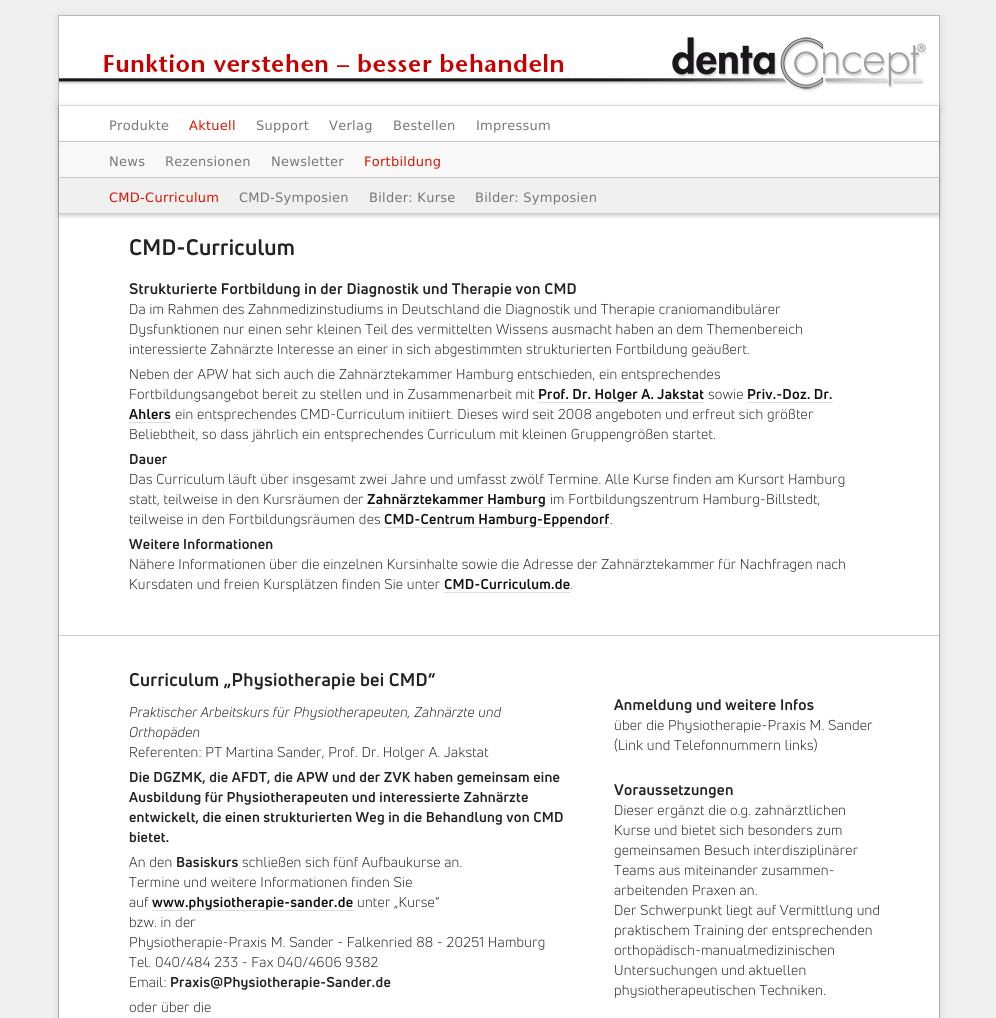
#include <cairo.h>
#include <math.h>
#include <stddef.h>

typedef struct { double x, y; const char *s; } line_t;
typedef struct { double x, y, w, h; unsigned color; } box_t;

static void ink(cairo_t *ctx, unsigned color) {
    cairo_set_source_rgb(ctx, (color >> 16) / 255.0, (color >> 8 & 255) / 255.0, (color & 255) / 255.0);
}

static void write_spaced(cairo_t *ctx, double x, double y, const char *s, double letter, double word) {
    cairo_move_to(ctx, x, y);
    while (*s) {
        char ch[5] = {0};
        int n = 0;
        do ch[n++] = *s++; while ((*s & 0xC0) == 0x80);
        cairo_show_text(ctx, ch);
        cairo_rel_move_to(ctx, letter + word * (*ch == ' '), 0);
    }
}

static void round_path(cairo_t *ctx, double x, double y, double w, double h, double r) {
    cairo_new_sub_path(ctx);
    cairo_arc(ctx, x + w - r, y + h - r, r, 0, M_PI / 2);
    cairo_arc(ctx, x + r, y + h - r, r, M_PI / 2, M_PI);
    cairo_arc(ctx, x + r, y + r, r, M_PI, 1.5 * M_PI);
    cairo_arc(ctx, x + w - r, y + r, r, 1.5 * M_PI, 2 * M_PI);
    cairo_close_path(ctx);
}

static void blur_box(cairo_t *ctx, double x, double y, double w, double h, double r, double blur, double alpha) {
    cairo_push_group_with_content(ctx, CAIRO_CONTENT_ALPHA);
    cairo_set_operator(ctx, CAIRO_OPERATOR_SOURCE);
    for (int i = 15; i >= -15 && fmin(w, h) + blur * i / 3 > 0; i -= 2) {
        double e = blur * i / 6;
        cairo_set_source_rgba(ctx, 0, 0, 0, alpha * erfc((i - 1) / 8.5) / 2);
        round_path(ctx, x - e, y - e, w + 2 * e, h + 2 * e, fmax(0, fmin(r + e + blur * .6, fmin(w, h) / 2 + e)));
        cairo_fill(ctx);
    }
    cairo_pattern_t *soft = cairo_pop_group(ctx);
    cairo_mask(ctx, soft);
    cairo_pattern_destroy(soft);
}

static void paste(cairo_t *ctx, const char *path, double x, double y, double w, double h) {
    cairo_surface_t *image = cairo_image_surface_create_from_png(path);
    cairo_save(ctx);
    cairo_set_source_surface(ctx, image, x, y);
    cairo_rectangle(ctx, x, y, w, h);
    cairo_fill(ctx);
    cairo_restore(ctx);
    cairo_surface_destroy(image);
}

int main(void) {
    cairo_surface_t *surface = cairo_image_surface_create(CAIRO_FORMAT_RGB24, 996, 1018);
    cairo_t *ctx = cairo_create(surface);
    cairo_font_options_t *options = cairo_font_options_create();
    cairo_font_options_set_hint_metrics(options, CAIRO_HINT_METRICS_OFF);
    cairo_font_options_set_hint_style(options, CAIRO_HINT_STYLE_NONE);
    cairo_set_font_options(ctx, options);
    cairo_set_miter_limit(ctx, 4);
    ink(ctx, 0xF0F0F0);
    cairo_paint(ctx);
    ink(ctx, 0x000000);
    blur_box(ctx, 58, 17, 882, 92, 0, 5, 0.1);
    ink(ctx, 0xFFFFFF);
    cairo_rectangle(ctx, 59, 16, 880, 89);
    cairo_fill(ctx);
    paste(ctx, "media/1.png", 59, 37, 868, 55);
    cairo_rectangle(ctx, 58.5, 15.5, 881, 91);
    ink(ctx, 0xBBBBBB);
    cairo_set_line_width(ctx, 1);
    cairo_stroke(ctx);
    ink(ctx, 0x000000);
    blur_box(ctx, 58, 107, 882, 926, 0, 5, 0.1);
    {
        static const box_t items[] = {
            {59, 106, 880, 912, 0xFFFFFF},
            {58, 105, 882, 1, 0xDDDDDD},
            {939, 105, 1, 913, 0xAAAAAA},
            {58, 105, 1, 913, 0xAAAAAA},
        };
        for (size_t i = 0; i < sizeof items / sizeof *items; i++) {
            ink(ctx, items[i].color);
            cairo_rectangle(ctx, items[i].x, items[i].y, items[i].w, items[i].h);
            cairo_fill(ctx);
        }
    }
    cairo_save(ctx);
    cairo_set_fill_rule(ctx, CAIRO_FILL_RULE_EVEN_ODD);
    cairo_new_path(ctx);
    cairo_move_to(ctx, 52, 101);
    cairo_line_to(ctx, 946, 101);
    cairo_line_to(ctx, 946, 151);
    cairo_line_to(ctx, 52, 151);
    cairo_close_path(ctx);
    cairo_move_to(ctx, 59, 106);
    cairo_line_to(ctx, 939, 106);
    cairo_line_to(ctx, 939, 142);
    cairo_line_to(ctx, 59, 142);
    cairo_close_path(ctx);
    cairo_clip(ctx);
    ink(ctx, 0x000000);
    blur_box(ctx, 59, 108, 880, 36, 0, 2, 0.2);
    cairo_restore(ctx);
    ink(ctx, 0xCCCCCC);
    cairo_rectangle(ctx, 59, 141, 880, 1);
    cairo_fill(ctx);
    cairo_select_font_face(ctx, "DejaVu Sans", CAIRO_FONT_SLANT_NORMAL, CAIRO_FONT_WEIGHT_NORMAL);
    cairo_set_font_size(ctx, 13);
    ink(ctx, 0x777777);
    write_spaced(ctx, 109, 130, "Produkte", 0.26, 0);
    ink(ctx, 0xDB1400);
    write_spaced(ctx, 189, 130, "Aktuell", 0.26, 0);
    ink(ctx, 0x777777);
    {
        static const line_t items[] = {
            {256, 130, "Support"},
            {329, 130, "Verlag"},
            {393, 130, "Bestellen"},
            {476, 130, "Impressum"},
        };
        for (size_t i = 0; i < sizeof items / sizeof *items; i++) {
            write_spaced(ctx, items[i].x, items[i].y, items[i].s, 0.26, 0);
        }
    }
    ink(ctx, 0x000000);
    blur_box(ctx, 59, 144, 880, 36, 0, 2, 0.2);
    ink(ctx, 0xF8F8F8);
    cairo_rectangle(ctx, 59, 142, 880, 35);
    cairo_fill(ctx);
    ink(ctx, 0xCCCCCC);
    cairo_rectangle(ctx, 59, 177, 880, 1);
    cairo_fill(ctx);
    ink(ctx, 0x777777);
    {
        static const line_t items[] = {
            {109, 166, "News"},
            {165, 166, "Rezensionen"},
            {271, 166, "Newsletter"},
        };
        for (size_t i = 0; i < sizeof items / sizeof *items; i++) {
            write_spaced(ctx, items[i].x, items[i].y, items[i].s, 0.26, 0);
        }
    }
    ink(ctx, 0xDB1400);
    write_spaced(ctx, 364, 166, "Fortbildung", 0.26, 0);
    ink(ctx, 0x000000);
    blur_box(ctx, 59, 180, 880, 36, 0, 2, 0.2);
    ink(ctx, 0xF0F0F0);
    cairo_rectangle(ctx, 59, 178, 880, 35);
    cairo_fill(ctx);
    ink(ctx, 0xCCCCCC);
    cairo_rectangle(ctx, 59, 213, 880, 1);
    cairo_fill(ctx);
    ink(ctx, 0xDB1400);
    write_spaced(ctx, 109, 202, "CMD-Curriculum", 0.26, 0);
    ink(ctx, 0x777777);
    {
        static const line_t items[] = {
            {239, 202, "CMD-Symposien"},
            {369, 202, "Bilder: Kurse"},
            {475, 202, "Bilder: Symposien"},
        };
        for (size_t i = 0; i < sizeof items / sizeof *items; i++) {
            write_spaced(ctx, items[i].x, items[i].y, items[i].s, 0.26, 0);
        }
    }
    cairo_select_font_face(ctx, "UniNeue", CAIRO_FONT_SLANT_NORMAL, CAIRO_FONT_WEIGHT_NORMAL);
    cairo_set_font_size(ctx, 22);
    ink(ctx, 0x242220);
    write_spaced(ctx, 129, 255, "CMD-Curriculum", 0.26, 0);
    cairo_set_font_size(ctx, 15);
    write_spaced(ctx, 129, 294, "Strukturierte Fortbildung in der Diagnostik und Therapie von CMD", 0.26, 0);
    cairo_select_font_face(ctx, "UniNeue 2", CAIRO_FONT_SLANT_NORMAL, CAIRO_FONT_WEIGHT_NORMAL);
    cairo_set_font_size(ctx, 14);
    {
        static const line_t items[] = {
            {129, 314, "Da im Rahmen des Zahnmedizinstudiums in Deutschland die Diagnostik und Therapie craniomandibulärer"},
            {129, 334, "Dysfunktionen nur einen sehr kleinen Teil des vermittelten Wissens ausmacht haben an dem Themenbereich"},
            {129, 354, "interessierte Zahnärzte Interesse an einer in sich abgestimmten strukturierten Fortbildung geäußert."},
            {129, 379, "Neben der APW hat sich auch die Zahnärztekammer Hamburg entschieden, ein entsprechendes"},
            {129, 399, "Fortbildungsangebot bereit zu stellen und in Zusammenarbeit mit"},
        };
        for (size_t i = 0; i < sizeof items / sizeof *items; i++) {
            write_spaced(ctx, items[i].x, items[i].y, items[i].s, 0.26, 0);
        }
    }
    cairo_select_font_face(ctx, "UniNeue", CAIRO_FONT_SLANT_NORMAL, CAIRO_FONT_WEIGHT_NORMAL);
    ink(ctx, 0x101010);
    write_spaced(ctx, 538, 399, "Prof. Dr. Holger A. Jakstat", 0.26, 0);
    ink(ctx, 0xDDDDDD);
    cairo_rectangle(ctx, 538, 402, 166, 1);
    cairo_fill(ctx);
    cairo_select_font_face(ctx, "UniNeue 2", CAIRO_FONT_SLANT_NORMAL, CAIRO_FONT_WEIGHT_NORMAL);
    ink(ctx, 0x242220);
    write_spaced(ctx, 708, 399, "sowie", 0.26, 0);
    cairo_select_font_face(ctx, "UniNeue", CAIRO_FONT_SLANT_NORMAL, CAIRO_FONT_WEIGHT_NORMAL);
    ink(ctx, 0x101010);
    write_spaced(ctx, 747, 399, "Priv.-Doz. Dr.", 0.26, 0);
    ink(ctx, 0xDDDDDD);
    cairo_rectangle(ctx, 747, 402, 86, 1);
    cairo_fill(ctx);
    ink(ctx, 0x101010);
    write_spaced(ctx, 129, 419, "Ahlers", 0.26, 0);
    ink(ctx, 0xDDDDDD);
    cairo_rectangle(ctx, 129, 422, 42, 1);
    cairo_fill(ctx);
    cairo_select_font_face(ctx, "UniNeue 2", CAIRO_FONT_SLANT_NORMAL, CAIRO_FONT_WEIGHT_NORMAL);
    ink(ctx, 0x242220);
    write_spaced(ctx, 175, 419, "ein entsprechendes CMD-Curriculum initiiert. Dieses wird seit 2008 angeboten und erfreut sich größter", 0.26, 0);
    write_spaced(ctx, 129, 439, "Beliebtheit, so dass jährlich ein entsprechendes Curriculum mit kleinen Gruppengrößen startet.", 0.26, 0);
    cairo_select_font_face(ctx, "UniNeue", CAIRO_FONT_SLANT_NORMAL, CAIRO_FONT_WEIGHT_NORMAL);
    write_spaced(ctx, 129, 464, "Dauer", 0.26, 0);
    cairo_select_font_face(ctx, "UniNeue 2", CAIRO_FONT_SLANT_NORMAL, CAIRO_FONT_WEIGHT_NORMAL);
    write_spaced(ctx, 129, 484, "Das Curriculum läuft über insgesamt zwei Jahre und umfasst zwölf Termine. Alle Kurse finden am Kursort Hamburg", 0.26, 0);
    write_spaced(ctx, 129, 504, "statt, teilweise in den Kursräumen der", 0.26, 0);
    cairo_select_font_face(ctx, "UniNeue", CAIRO_FONT_SLANT_NORMAL, CAIRO_FONT_WEIGHT_NORMAL);
    ink(ctx, 0x101010);
    write_spaced(ctx, 367, 504, "Zahnärztekammer Hamburg", 0.26, 0);
    ink(ctx, 0xDDDDDD);
    cairo_rectangle(ctx, 367, 507, 179, 1);
    cairo_fill(ctx);
    cairo_select_font_face(ctx, "UniNeue 2", CAIRO_FONT_SLANT_NORMAL, CAIRO_FONT_WEIGHT_NORMAL);
    ink(ctx, 0x242220);
    write_spaced(ctx, 550, 504, "im Fortbildungszentrum Hamburg-Billstedt,", 0.26, 0);
    write_spaced(ctx, 129, 524, "teilweise in den Fortbildungsräumen des", 0.26, 0);
    cairo_select_font_face(ctx, "UniNeue", CAIRO_FONT_SLANT_NORMAL, CAIRO_FONT_WEIGHT_NORMAL);
    ink(ctx, 0x101010);
    write_spaced(ctx, 384, 524, "CMD-Centrum Hamburg-Eppendorf", 0.26, 0);
    ink(ctx, 0xDDDDDD);
    cairo_rectangle(ctx, 384, 527, 226, 1);
    cairo_fill(ctx);
    cairo_select_font_face(ctx, "UniNeue 2", CAIRO_FONT_SLANT_NORMAL, CAIRO_FONT_WEIGHT_NORMAL);
    ink(ctx, 0x242220);
    write_spaced(ctx, 610, 524, ".", 0.26, 0);
    cairo_select_font_face(ctx, "UniNeue", CAIRO_FONT_SLANT_NORMAL, CAIRO_FONT_WEIGHT_NORMAL);
    write_spaced(ctx, 129, 549, "Weitere Informationen", 0.26, 0);
    cairo_select_font_face(ctx, "UniNeue 2", CAIRO_FONT_SLANT_NORMAL, CAIRO_FONT_WEIGHT_NORMAL);
    write_spaced(ctx, 129, 569, "Nähere Informationen über die einzelnen Kursinhalte sowie die Adresse der Zahnärztekammer für Nachfragen nach", 0.26, 0);
    write_spaced(ctx, 129, 589, "Kursdaten und freien Kursplätzen finden Sie unter", 0.26, 0);
    cairo_select_font_face(ctx, "UniNeue", CAIRO_FONT_SLANT_NORMAL, CAIRO_FONT_WEIGHT_NORMAL);
    ink(ctx, 0x101010);
    write_spaced(ctx, 444, 589, "CMD-Curriculum.de", 0.26, 0);
    ink(ctx, 0xDDDDDD);
    cairo_rectangle(ctx, 444, 592, 126, 1);
    cairo_fill(ctx);
    cairo_select_font_face(ctx, "UniNeue 2", CAIRO_FONT_SLANT_NORMAL, CAIRO_FONT_WEIGHT_NORMAL);
    ink(ctx, 0x242220);
    write_spaced(ctx, 570, 589, ".", 0.26, 0);
    ink(ctx, 0xCCCCCC);
    cairo_rectangle(ctx, 59, 635, 880, 1);
    cairo_fill(ctx);
    cairo_select_font_face(ctx, "UniNeue", CAIRO_FONT_SLANT_NORMAL, CAIRO_FONT_WEIGHT_NORMAL);
    cairo_set_font_size(ctx, 18);
    ink(ctx, 0x242220);
    write_spaced(ctx, 129, 686, "Curriculum „Physiotherapie bei CMD“", 0.3, 0);
    cairo_select_font_face(ctx, "UniNeue", CAIRO_FONT_SLANT_ITALIC, CAIRO_FONT_WEIGHT_NORMAL);
    cairo_set_font_size(ctx, 14);
    write_spaced(ctx, 129, 717, "Praktischer Arbeitskurs für Physiotherapeuten, Zahnärzte und", 0.26, 0);
    write_spaced(ctx, 129, 737, "Orthopäden", 0.26, 0);
    cairo_select_font_face(ctx, "UniNeue 2", CAIRO_FONT_SLANT_NORMAL, CAIRO_FONT_WEIGHT_NORMAL);
    write_spaced(ctx, 129, 757, "Referenten: PT Martina Sander, Prof. Dr. Holger A. Jakstat", 0.26, 0);
    cairo_select_font_face(ctx, "UniNeue", CAIRO_FONT_SLANT_NORMAL, CAIRO_FONT_WEIGHT_NORMAL);
    {
        static const line_t items[] = {
            {129, 782, "Die DGZMK, die AFDT, die APW und der ZVK haben gemeinsam eine"},
            {129, 802, "Ausbildung für Physiotherapeuten und interessierte Zahnärzte"},
            {129, 822, "entwickelt, die einen strukturierten Weg in die Behandlung von CMD"},
            {129, 842, "bietet."},
        };
        for (size_t i = 0; i < sizeof items / sizeof *items; i++) {
            write_spaced(ctx, items[i].x, items[i].y, items[i].s, 0.26, 0);
        }
    }
    cairo_select_font_face(ctx, "UniNeue 2", CAIRO_FONT_SLANT_NORMAL, CAIRO_FONT_WEIGHT_NORMAL);
    write_spaced(ctx, 129, 867, "An den", 0.26, 0);
    cairo_select_font_face(ctx, "UniNeue", CAIRO_FONT_SLANT_NORMAL, CAIRO_FONT_WEIGHT_NORMAL);
    write_spaced(ctx, 176, 867, "Basiskurs", 0.26, 0);
    cairo_select_font_face(ctx, "UniNeue 2", CAIRO_FONT_SLANT_NORMAL, CAIRO_FONT_WEIGHT_NORMAL);
    {
        static const line_t items[] = {
            {242, 867, "schließen sich fünf Aufbaukurse an."},
            {129, 887, "Termine und weitere Informationen finden Sie"},
            {129, 907, "auf"},
        };
        for (size_t i = 0; i < sizeof items / sizeof *items; i++) {
            write_spaced(ctx, items[i].x, items[i].y, items[i].s, 0.26, 0);
        }
    }
    cairo_select_font_face(ctx, "UniNeue", CAIRO_FONT_SLANT_NORMAL, CAIRO_FONT_WEIGHT_NORMAL);
    ink(ctx, 0x101010);
    write_spaced(ctx, 152, 907, "www.physiotherapie-sander.de", 0.26, 0);
    ink(ctx, 0xDDDDDD);
    cairo_rectangle(ctx, 152, 910, 202, 1);
    cairo_fill(ctx);
    cairo_select_font_face(ctx, "UniNeue 2", CAIRO_FONT_SLANT_NORMAL, CAIRO_FONT_WEIGHT_NORMAL);
    ink(ctx, 0x242220);
    {
        static const line_t items[] = {
            {357, 907, "unter „Kurse“"},
            {129, 927, "bzw. in der"},
            {129, 947, "Physiotherapie-Praxis M. Sander - Falkenried 88 - 20251 Hamburg"},
            {129, 967, "Tel. 040/484 233 - Fax 040/4606 9382"},
            {129, 987, "Email:"},
        };
        for (size_t i = 0; i < sizeof items / sizeof *items; i++) {
            write_spaced(ctx, items[i].x, items[i].y, items[i].s, 0.26, 0);
        }
    }
    cairo_select_font_face(ctx, "UniNeue", CAIRO_FONT_SLANT_NORMAL, CAIRO_FONT_WEIGHT_NORMAL);
    write_spaced(ctx, 170, 987, "Praxis@Physiotherapie-Sander.de", 0.26, 0);
    cairo_select_font_face(ctx, "UniNeue 2", CAIRO_FONT_SLANT_NORMAL, CAIRO_FONT_WEIGHT_NORMAL);
    write_spaced(ctx, 129, 1012, "oder über die", 0.26, 0);
    cairo_select_font_face(ctx, "UniNeue", CAIRO_FONT_SLANT_NORMAL, CAIRO_FONT_WEIGHT_NORMAL);
    cairo_set_font_size(ctx, 15);
    write_spaced(ctx, 614, 710, "Anmeldung und weitere Infos", 0.26, 0);
    cairo_select_font_face(ctx, "UniNeue 2", CAIRO_FONT_SLANT_NORMAL, CAIRO_FONT_WEIGHT_NORMAL);
    cairo_set_font_size(ctx, 14);
    write_spaced(ctx, 614, 730, "über die Physiotherapie-Praxis M. Sander", 0.26, 0);
    write_spaced(ctx, 614, 750, "(Link und Telefonnummern links)", 0.26, 0);
    cairo_select_font_face(ctx, "UniNeue", CAIRO_FONT_SLANT_NORMAL, CAIRO_FONT_WEIGHT_NORMAL);
    cairo_set_font_size(ctx, 15);
    write_spaced(ctx, 614, 795, "Voraussetzungen", 0.26, 0);
    cairo_select_font_face(ctx, "UniNeue 2", CAIRO_FONT_SLANT_NORMAL, CAIRO_FONT_WEIGHT_NORMAL);
    cairo_set_font_size(ctx, 14);
    {
        static const line_t items[] = {
            {614, 815, "Dieser ergänzt die o.g. zahnärztlichen"},
            {614, 835, "Kurse und bietet sich besonders zum"},
            {614, 855, "gemeinsamen Besuch interdisziplinärer"},
            {614, 875, "Teams aus miteinander zusammen-"},
            {614, 895, "arbeitenden Praxen an."},
            {614, 915, "Der Schwerpunkt liegt auf Vermittlung und"},
            {614, 935, "praktischem Training der entsprechenden"},
            {614, 955, "orthopädisch-manualmedizinischen"},
            {614, 975, "Untersuchungen und aktuellen"},
            {614, 995, "physiotherapeutischen Techniken."},
        };
        for (size_t i = 0; i < sizeof items / sizeof *items; i++) {
            write_spaced(ctx, items[i].x, items[i].y, items[i].s, 0.26, 0);
        }
    }
    cairo_surface_write_to_png(surface, "image.png");
    cairo_font_options_destroy(options);
    cairo_destroy(ctx);
    cairo_surface_destroy(surface);
    return 0;
}
